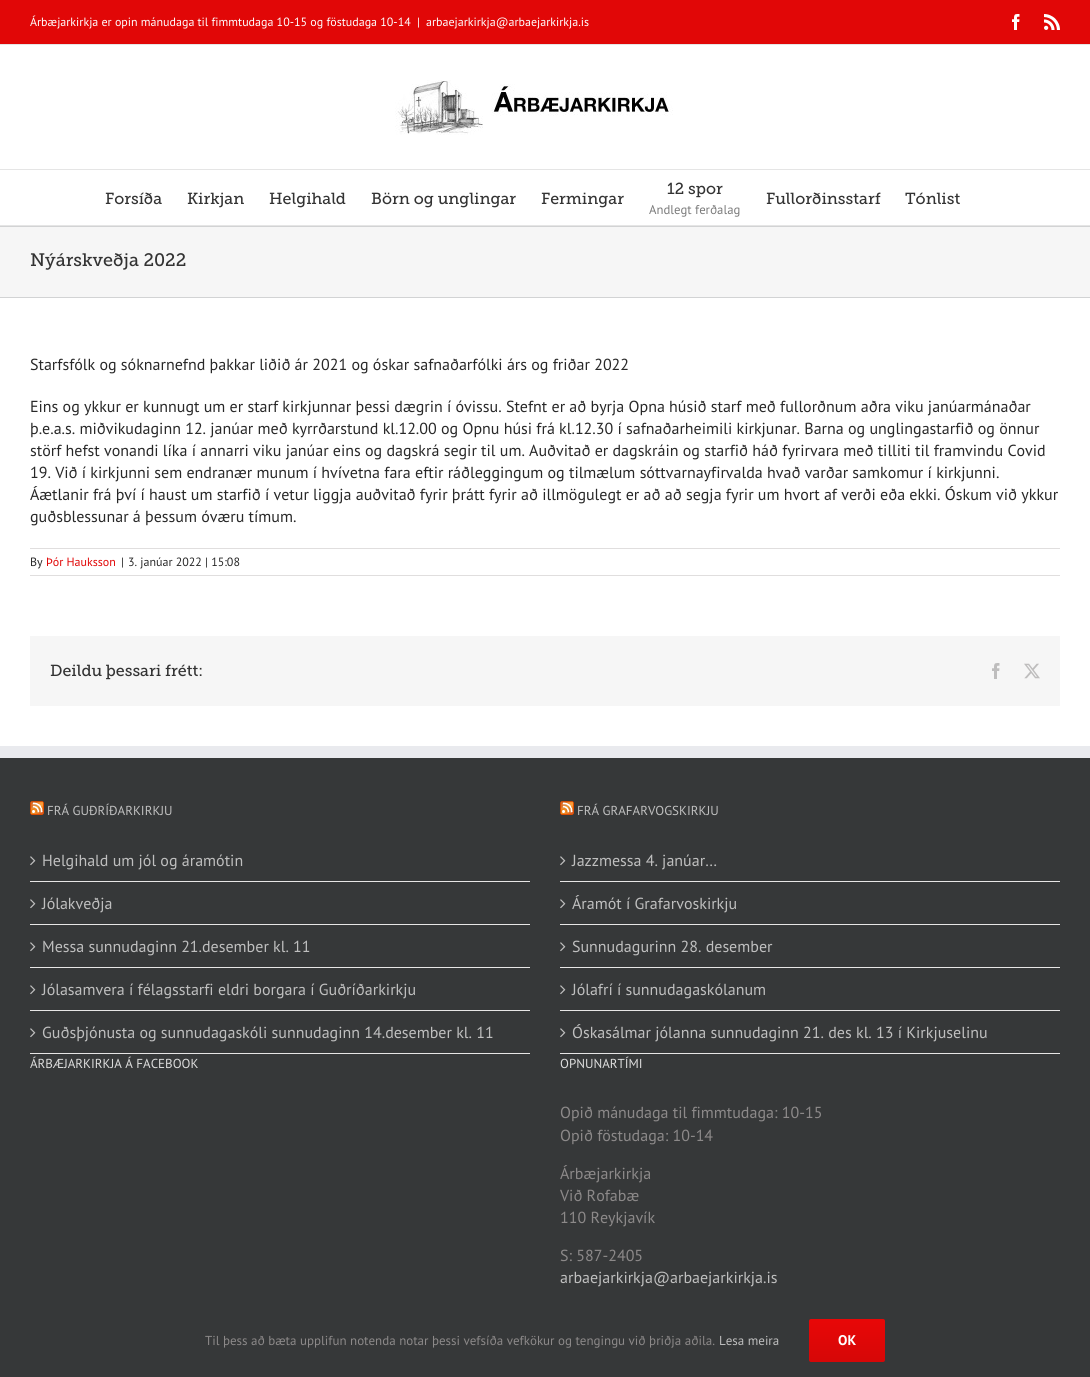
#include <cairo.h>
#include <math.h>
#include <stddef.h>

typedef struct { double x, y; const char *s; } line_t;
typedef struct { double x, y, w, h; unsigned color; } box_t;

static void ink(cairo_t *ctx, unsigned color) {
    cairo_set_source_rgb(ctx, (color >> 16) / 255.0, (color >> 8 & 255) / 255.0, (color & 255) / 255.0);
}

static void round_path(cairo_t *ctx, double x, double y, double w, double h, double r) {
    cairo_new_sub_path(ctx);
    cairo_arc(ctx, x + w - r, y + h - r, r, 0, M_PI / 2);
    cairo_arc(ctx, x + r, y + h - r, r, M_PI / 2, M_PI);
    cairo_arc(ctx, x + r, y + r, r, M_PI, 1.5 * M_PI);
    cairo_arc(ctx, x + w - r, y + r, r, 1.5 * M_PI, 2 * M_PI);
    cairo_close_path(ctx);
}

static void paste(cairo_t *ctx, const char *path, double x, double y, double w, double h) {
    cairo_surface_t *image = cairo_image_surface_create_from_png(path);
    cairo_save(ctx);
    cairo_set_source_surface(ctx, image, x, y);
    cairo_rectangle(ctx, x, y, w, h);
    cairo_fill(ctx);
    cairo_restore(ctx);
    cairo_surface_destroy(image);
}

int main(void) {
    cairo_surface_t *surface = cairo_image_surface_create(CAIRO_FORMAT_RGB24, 1090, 1377);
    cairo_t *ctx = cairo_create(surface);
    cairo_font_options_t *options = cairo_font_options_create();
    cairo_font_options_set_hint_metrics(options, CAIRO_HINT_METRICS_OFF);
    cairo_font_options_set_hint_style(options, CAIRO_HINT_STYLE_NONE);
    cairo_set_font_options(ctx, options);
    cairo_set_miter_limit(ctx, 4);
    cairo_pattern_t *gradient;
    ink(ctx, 0xFFFFFF);
    cairo_paint(ctx);
    ink(ctx, 0xE10707);
    cairo_rectangle(ctx, 0, 0, 1090, 44);
    cairo_fill(ctx);
    ink(ctx, 0xE5E5E5);
    cairo_rectangle(ctx, 0, 44, 1090, 1);
    cairo_fill(ctx);
    cairo_select_font_face(ctx, "PT Sans", CAIRO_FONT_SLANT_NORMAL, CAIRO_FONT_WEIGHT_NORMAL);
    cairo_set_font_size(ctx, 12);
    ink(ctx, 0xFFFFFF);
    {
        static const line_t items[] = {
            {30, 26, "Árbæjarkirkja er opin mánudaga til fimmtudaga 10-15 og föstudaga 10-14"},
            {417, 26, "|"},
            {426, 26, "arbaejarkirkja@arbaejarkirkja.is"},
        };
        for (size_t i = 0; i < sizeof items / sizeof *items; i++) {
            cairo_move_to(ctx, items[i].x, items[i].y);
            cairo_show_text(ctx, items[i].s);
        }
    }
    paste(ctx, "media/1.png", 1012, 14, 8, 16);
    paste(ctx, "media/2.png", 1044, 14, 16, 16);
    ink(ctx, 0xE5E5E5);
    cairo_rectangle(ctx, 0, 169, 1090, 1);
    cairo_fill(ctx);
    paste(ctx, "media/3.png", 395, 80, 278, 55);
    cairo_rectangle(ctx, 0, 225, 1090, 1);
    cairo_fill(ctx);
    cairo_select_font_face(ctx, "Museo Slab", CAIRO_FONT_SLANT_NORMAL, CAIRO_FONT_WEIGHT_NORMAL);
    cairo_set_font_size(ctx, 16);
    ink(ctx, 0x333333);
    {
        static const line_t items[] = {
            {105, 204, "Forsíða"},
            {187, 204, "Kirkjan"},
            {269, 204, "Helgihald"},
            {371, 204, "Börn og unglingar"},
            {541, 204, "Fermingar"},
            {667, 194, "12 spor"},
        };
        for (size_t i = 0; i < sizeof items / sizeof *items; i++) {
            cairo_move_to(ctx, items[i].x, items[i].y);
            cairo_show_text(ctx, items[i].s);
        }
    }
    cairo_select_font_face(ctx, "PT Sans", CAIRO_FONT_SLANT_NORMAL, CAIRO_FONT_WEIGHT_NORMAL);
    cairo_set_font_size(ctx, 12.75);
    ink(ctx, 0x7A7A7A);
    cairo_move_to(ctx, 649, 214);
    cairo_show_text(ctx, "Andlegt ferðalag");
    cairo_select_font_face(ctx, "Museo Slab", CAIRO_FONT_SLANT_NORMAL, CAIRO_FONT_WEIGHT_NORMAL);
    cairo_set_font_size(ctx, 16);
    ink(ctx, 0x333333);
    cairo_move_to(ctx, 766, 204);
    cairo_show_text(ctx, "Fullorðinsstarf");
    cairo_move_to(ctx, 905, 204);
    cairo_show_text(ctx, "Tónlist");
    {
        static const box_t items[] = {
            {0, 227, 1090, 70, 0xF6F6F6},
            {0, 226, 1090, 1, 0xD2D3D4},
            {0, 297, 1090, 1, 0xD2D3D4},
        };
        for (size_t i = 0; i < sizeof items / sizeof *items; i++) {
            ink(ctx, items[i].color);
            cairo_rectangle(ctx, items[i].x, items[i].y, items[i].w, items[i].h);
            cairo_fill(ctx);
        }
    }
    cairo_set_font_size(ctx, 18);
    ink(ctx, 0x333333);
    cairo_move_to(ctx, 30, 266);
    cairo_show_text(ctx, "Nýárskveðja 2022");
    cairo_select_font_face(ctx, "PT Sans", CAIRO_FONT_SLANT_NORMAL, CAIRO_FONT_WEIGHT_NORMAL);
    cairo_set_font_size(ctx, 16);
    ink(ctx, 0x282828);
    {
        static const line_t items[] = {
            {30, 370, "Starfsfólk og sóknarnefnd þakkar liðið ár 2021 og óskar safnaðarfólki árs og friðar 2022"},
            {30, 412, "Eins og ykkur er kunnugt um er starf kirkjunnar þessi dægrin í óvissu. Stefnt er að byrja Opna húsið starf með fullorðnum aðra viku janúarmánaðar"},
            {30, 434, "þ.e.a.s. miðvikudaginn 12. janúar með kyrrðarstund kl.12.00 og Opnu húsi frá kl.12.30 í safnaðarheimili kirkjunar. Barna og unglingastarfið og önnur"},
            {30, 456, "störf hefst vonandi líka í annarri viku janúar eins og dagskrá segir til um. Auðvitað er dagskráin og starfið háð fyrirvara með tilliti til framvindu Covid"},
            {30, 478, "19. Við í kirkjunni sem endranær munum í hvívetna fara eftir ráðleggingum og tilmælum sóttvarnayfirvalda hvað varðar samkomur í kirkjunni."},
            {30, 500, "Áætlanir frá því í haust um starfið í vetur liggja auðvitað fyrir þrátt fyrir að illmögulegt er að að segja fyrir um hvort af verði eða ekki. Óskum við ykkur"},
            {30, 522, "guðsblessunar á þessum óværu tímum."},
        };
        for (size_t i = 0; i < sizeof items / sizeof *items; i++) {
            cairo_move_to(ctx, items[i].x, items[i].y);
            cairo_show_text(ctx, items[i].s);
        }
    }
    ink(ctx, 0xE0DEDE);
    cairo_rectangle(ctx, 30, 548, 1030, 1);
    cairo_fill(ctx);
    cairo_rectangle(ctx, 30, 575, 1030, 1);
    cairo_fill(ctx);
    cairo_set_font_size(ctx, 12);
    ink(ctx, 0x282828);
    cairo_move_to(ctx, 30, 566);
    cairo_show_text(ctx, "By");
    ink(ctx, 0xE10707);
    cairo_move_to(ctx, 46, 566);
    cairo_show_text(ctx, "Þór Hauksson");
    ink(ctx, 0x282828);
    cairo_move_to(ctx, 121, 566);
    cairo_show_text(ctx, "|");
    cairo_move_to(ctx, 128, 566);
    cairo_show_text(ctx, "3. janúar 2022 | 15:08");
    ink(ctx, 0xF6F6F6);
    cairo_rectangle(ctx, 30, 636, 1030, 70);
    cairo_fill(ctx);
    cairo_select_font_face(ctx, "Museo Slab", CAIRO_FONT_SLANT_NORMAL, CAIRO_FONT_WEIGHT_NORMAL);
    cairo_set_font_size(ctx, 16);
    ink(ctx, 0x333333);
    cairo_move_to(ctx, 50, 676);
    cairo_show_text(ctx, "Deildu þessari frétt:");
    paste(ctx, "media/4.png", 992, 663, 8, 16);
    paste(ctx, "media/5.png", 1024, 663, 16, 16);
    ink(ctx, 0x363839);
    cairo_rectangle(ctx, 0, 758, 1090, 619);
    cairo_fill(ctx);
    ink(ctx, 0xE9EAEE);
    cairo_rectangle(ctx, 0, 746, 1090, 12);
    cairo_fill(ctx);
    paste(ctx, "media/6.png", 30, 801, 14, 14);
    cairo_select_font_face(ctx, "PT Sans", CAIRO_FONT_SLANT_NORMAL, CAIRO_FONT_WEIGHT_NORMAL);
    cairo_set_font_size(ctx, 13);
    ink(ctx, 0xBFBFBF);
    cairo_move_to(ctx, 47, 815);
    cairo_show_text(ctx, "FRÁ GUÐRÍÐARKIRKJU");
    ink(ctx, 0xE7E6E6);
    cairo_rectangle(ctx, 30, 881, 500, 1);
    cairo_fill(ctx);
    paste(ctx, "media/7.png", 30, 856, 6, 10);
    cairo_set_font_size(ctx, 16);
    ink(ctx, 0xBFBFBF);
    cairo_move_to(ctx, 42, 866);
    cairo_show_text(ctx, "Helgihald um jól og áramótin");
    ink(ctx, 0xE7E6E6);
    cairo_rectangle(ctx, 30, 924, 500, 1);
    cairo_fill(ctx);
    paste(ctx, "media/7.png", 30, 899, 6, 10);
    ink(ctx, 0xBFBFBF);
    cairo_move_to(ctx, 42, 909);
    cairo_show_text(ctx, "Jólakveðja");
    ink(ctx, 0xE7E6E6);
    cairo_rectangle(ctx, 30, 967, 500, 1);
    cairo_fill(ctx);
    paste(ctx, "media/7.png", 30, 942, 6, 10);
    ink(ctx, 0xBFBFBF);
    cairo_move_to(ctx, 42, 952);
    cairo_show_text(ctx, "Messa sunnudaginn 21.desember kl. 11");
    ink(ctx, 0xE7E6E6);
    cairo_rectangle(ctx, 30, 1010, 500, 1);
    cairo_fill(ctx);
    paste(ctx, "media/7.png", 30, 985, 6, 10);
    ink(ctx, 0xBFBFBF);
    cairo_move_to(ctx, 42, 995);
    cairo_show_text(ctx, "Jólasamvera í félagsstarfi eldri borgara í Guðríðarkirkju");
    ink(ctx, 0xE7E6E6);
    cairo_rectangle(ctx, 30, 1053, 500, 1);
    cairo_fill(ctx);
    paste(ctx, "media/7.png", 30, 1028, 6, 10);
    ink(ctx, 0xBFBFBF);
    cairo_move_to(ctx, 42, 1038);
    cairo_show_text(ctx, "Guðsþjónusta og sunnudagaskóli sunnudaginn 14.desember kl. 11");
    paste(ctx, "media/6.png", 560, 801, 14, 14);
    cairo_set_font_size(ctx, 13);
    cairo_move_to(ctx, 577, 815);
    cairo_show_text(ctx, "FRÁ GRAFARVOGSKIRKJU");
    ink(ctx, 0xE7E6E6);
    cairo_rectangle(ctx, 560, 881, 500, 1);
    cairo_fill(ctx);
    paste(ctx, "media/7.png", 560, 856, 6, 10);
    cairo_set_font_size(ctx, 16);
    ink(ctx, 0xBFBFBF);
    cairo_move_to(ctx, 572, 866);
    cairo_show_text(ctx, "Jazzmessa 4. janúar…");
    ink(ctx, 0xE7E6E6);
    cairo_rectangle(ctx, 560, 924, 500, 1);
    cairo_fill(ctx);
    paste(ctx, "media/7.png", 560, 899, 6, 10);
    ink(ctx, 0xBFBFBF);
    cairo_move_to(ctx, 572, 909);
    cairo_show_text(ctx, "Áramót í Grafarvoskirkju");
    ink(ctx, 0xE7E6E6);
    cairo_rectangle(ctx, 560, 967, 500, 1);
    cairo_fill(ctx);
    paste(ctx, "media/7.png", 560, 942, 6, 10);
    ink(ctx, 0xBFBFBF);
    cairo_move_to(ctx, 572, 952);
    cairo_show_text(ctx, "Sunnudagurinn 28. desember");
    ink(ctx, 0xE7E6E6);
    cairo_rectangle(ctx, 560, 1010, 500, 1);
    cairo_fill(ctx);
    paste(ctx, "media/7.png", 560, 985, 6, 10);
    ink(ctx, 0xBFBFBF);
    cairo_move_to(ctx, 572, 995);
    cairo_show_text(ctx, "Jólafrí í sunnudagaskólanum");
    ink(ctx, 0xE7E6E6);
    cairo_rectangle(ctx, 560, 1053, 500, 1);
    cairo_fill(ctx);
    paste(ctx, "media/7.png", 560, 1028, 6, 10);
    ink(ctx, 0xBFBFBF);
    cairo_move_to(ctx, 572, 1038);
    cairo_show_text(ctx, "Óskasálmar jólanna sunnudaginn 21. des kl. 13 í Kirkjuselinu");
    cairo_set_font_size(ctx, 13);
    ink(ctx, 0xDDDDDD);
    cairo_move_to(ctx, 30, 1068);
    cairo_show_text(ctx, "ÁRBÆJARKIRKJA Á FACEBOOK");
    cairo_move_to(ctx, 560, 1068);
    cairo_show_text(ctx, "OPNUNARTÍMI");
    cairo_set_font_size(ctx, 16);
    ink(ctx, 0x8C8989);
    {
        static const line_t items[] = {
            {560, 1118, "Opið mánudaga til fimmtudaga: 10-15"},
            {560, 1141, "Opið föstudaga: 10-14"},
            {560, 1179, "Árbæjarkirkja"},
            {560, 1201, "Við Rofabæ"},
            {560, 1223, "110 Reykjavík"},
            {560, 1261, "S: 587-2405"},
        };
        for (size_t i = 0; i < sizeof items / sizeof *items; i++) {
            cairo_move_to(ctx, items[i].x, items[i].y);
            cairo_show_text(ctx, items[i].s);
        }
    }
    ink(ctx, 0xBFBFBF);
    cairo_move_to(ctx, 560, 1283);
    cairo_show_text(ctx, "arbaejarkirkja@arbaejarkirkja.is");
    cairo_set_font_size(ctx, 13);
    ink(ctx, 0x8C8989);
    cairo_move_to(ctx, 205, 1345);
    cairo_show_text(ctx, "Til þess að bæta upplifun notenda notar þessi vefsíða vefkökur og tengingu við þriðja aðila.");
    ink(ctx, 0xBFBFBF);
    cairo_move_to(ctx, 719, 1345);
    cairo_show_text(ctx, "Lesa meira");
    gradient = cairo_pattern_create_linear(847, 1319, 847, 1362);
    cairo_pattern_add_color_stop_rgba(gradient, 0, 0.91, 0.027, 0.027, 1);
    cairo_pattern_add_color_stop_rgba(gradient, 1, 0.839, 0.027, 0.027, 1);
    cairo_set_source(ctx, gradient);
    cairo_pattern_destroy(gradient);
    round_path(ctx, 809, 1319, 76, 43, 2);
    cairo_fill(ctx);
    cairo_select_font_face(ctx, "PT Sans", CAIRO_FONT_SLANT_NORMAL, CAIRO_FONT_WEIGHT_BOLD);
    cairo_set_font_size(ctx, 14);
    ink(ctx, 0xFFFFFF);
    cairo_move_to(ctx, 838, 1345);
    cairo_show_text(ctx, "OK");
    cairo_surface_write_to_png(surface, "image.png");
    cairo_font_options_destroy(options);
    cairo_destroy(ctx);
    cairo_surface_destroy(surface);
    return 0;
}
